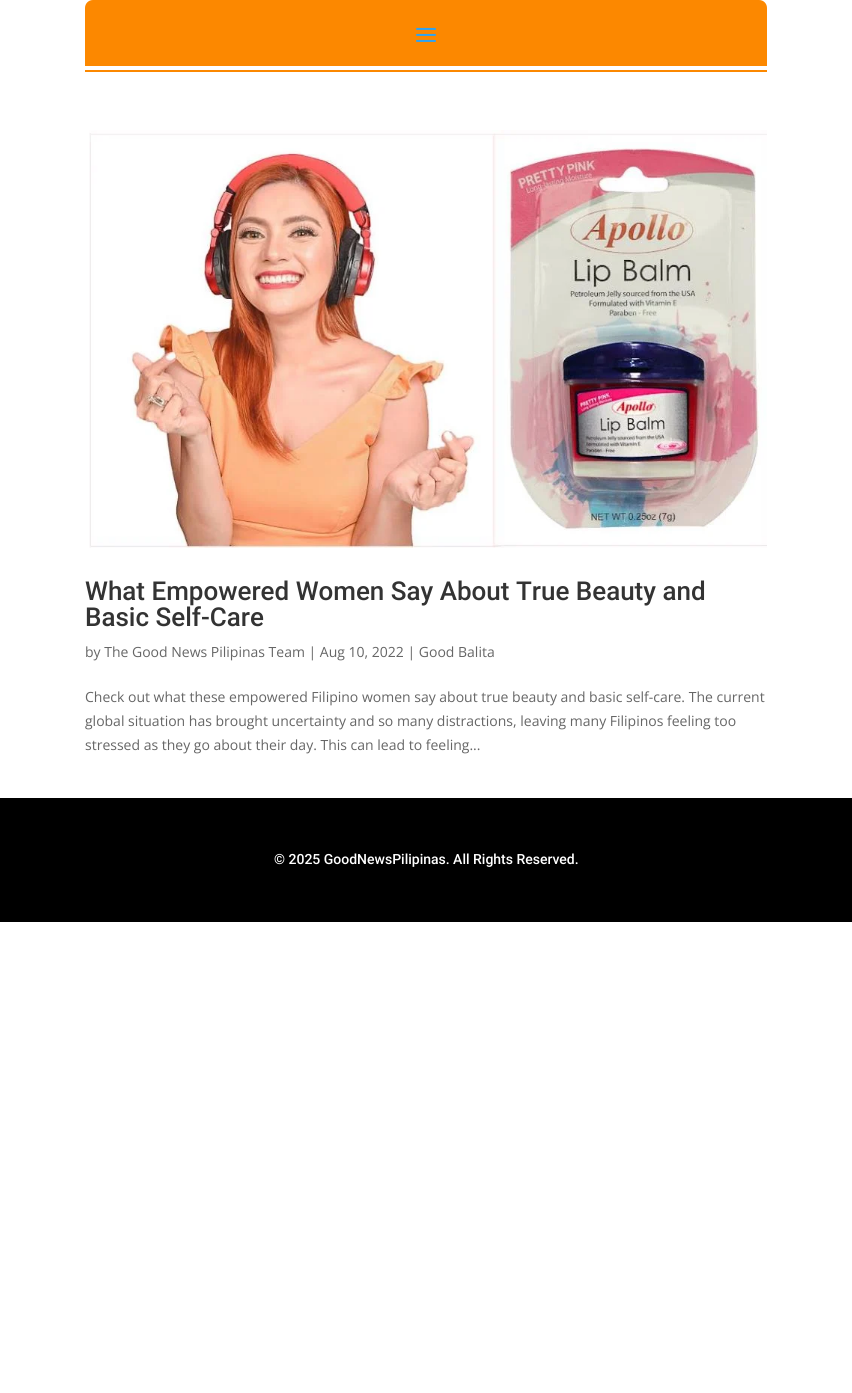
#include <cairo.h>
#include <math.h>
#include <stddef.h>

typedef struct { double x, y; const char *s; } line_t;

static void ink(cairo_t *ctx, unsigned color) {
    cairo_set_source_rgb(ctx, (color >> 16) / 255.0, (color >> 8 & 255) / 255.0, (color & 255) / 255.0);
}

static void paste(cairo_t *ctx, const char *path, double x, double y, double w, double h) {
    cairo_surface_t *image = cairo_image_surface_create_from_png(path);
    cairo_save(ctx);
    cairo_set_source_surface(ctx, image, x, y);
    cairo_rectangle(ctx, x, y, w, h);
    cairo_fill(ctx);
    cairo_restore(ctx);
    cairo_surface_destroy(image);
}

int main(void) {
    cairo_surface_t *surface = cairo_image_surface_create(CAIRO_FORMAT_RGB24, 852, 1393);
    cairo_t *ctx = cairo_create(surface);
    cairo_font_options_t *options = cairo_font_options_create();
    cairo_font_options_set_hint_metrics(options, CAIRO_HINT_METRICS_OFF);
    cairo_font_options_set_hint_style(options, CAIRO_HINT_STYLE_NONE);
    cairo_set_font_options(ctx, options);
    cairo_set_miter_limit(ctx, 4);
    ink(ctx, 0xFFFFFF);
    cairo_paint(ctx);
    ink(ctx, 0xFC8800);
    cairo_rectangle(ctx, 85, 70, 682, 2);
    cairo_fill(ctx);
    cairo_new_path(ctx);
    cairo_move_to(ctx, 93, 0);
    cairo_line_to(ctx, 759, 0);
    cairo_curve_to(ctx, 763.5, 0, 767, 3.5, 767, 8);
    cairo_line_to(ctx, 767, 66);
    cairo_line_to(ctx, 85, 66);
    cairo_line_to(ctx, 85, 8);
    cairo_curve_to(ctx, 85, 3.5, 88.5, 0, 93, 0);
    cairo_close_path(ctx);
    cairo_fill(ctx);
    paste(ctx, "media/1.png", 416, 27, 20, 15);
    paste(ctx, "media/2.png", 89, 130, 678, 418);
    cairo_select_font_face(ctx, "Roboto Medium", CAIRO_FONT_SLANT_NORMAL, CAIRO_FONT_WEIGHT_NORMAL);
    cairo_set_font_size(ctx, 26);
    ink(ctx, 0x333333);
    cairo_move_to(ctx, 85, 600);
    cairo_show_text(ctx, "What Empowered Women Say About True Beauty and");
    cairo_move_to(ctx, 85, 626);
    cairo_show_text(ctx, "Basic Self-Care");
    cairo_select_font_face(ctx, "Open Sans", CAIRO_FONT_SLANT_NORMAL, CAIRO_FONT_WEIGHT_NORMAL);
    cairo_set_font_size(ctx, 14);
    ink(ctx, 0x666666);
    {
        static const line_t items[] = {
            {85, 657, "by The Good News Pilipinas Team | Aug 10, 2022 | Good Balita"},
            {85, 702, "Check out what these empowered Filipino women say about true beauty and basic self-care. The current"},
            {85, 726, "global situation has brought uncertainty and so many distractions, leaving many Filipinos feeling too"},
            {85, 750, "stressed as they go about their day. This can lead to feeling..."},
        };
        for (size_t i = 0; i < sizeof items / sizeof *items; i++) {
            cairo_move_to(ctx, items[i].x, items[i].y);
            cairo_show_text(ctx, items[i].s);
        }
    }
    ink(ctx, 0x000000);
    cairo_rectangle(ctx, 0, 798, 852, 124);
    cairo_fill(ctx);
    cairo_select_font_face(ctx, "Roboto Medium", CAIRO_FONT_SLANT_NORMAL, CAIRO_FONT_WEIGHT_NORMAL);
    ink(ctx, 0xFFFFFF);
    cairo_move_to(ctx, 274, 864);
    cairo_show_text(ctx, "© 2025 GoodNewsPilipinas. All Rights Reserved.");
    cairo_surface_write_to_png(surface, "image.png");
    cairo_font_options_destroy(options);
    cairo_destroy(ctx);
    cairo_surface_destroy(surface);
    return 0;
}
